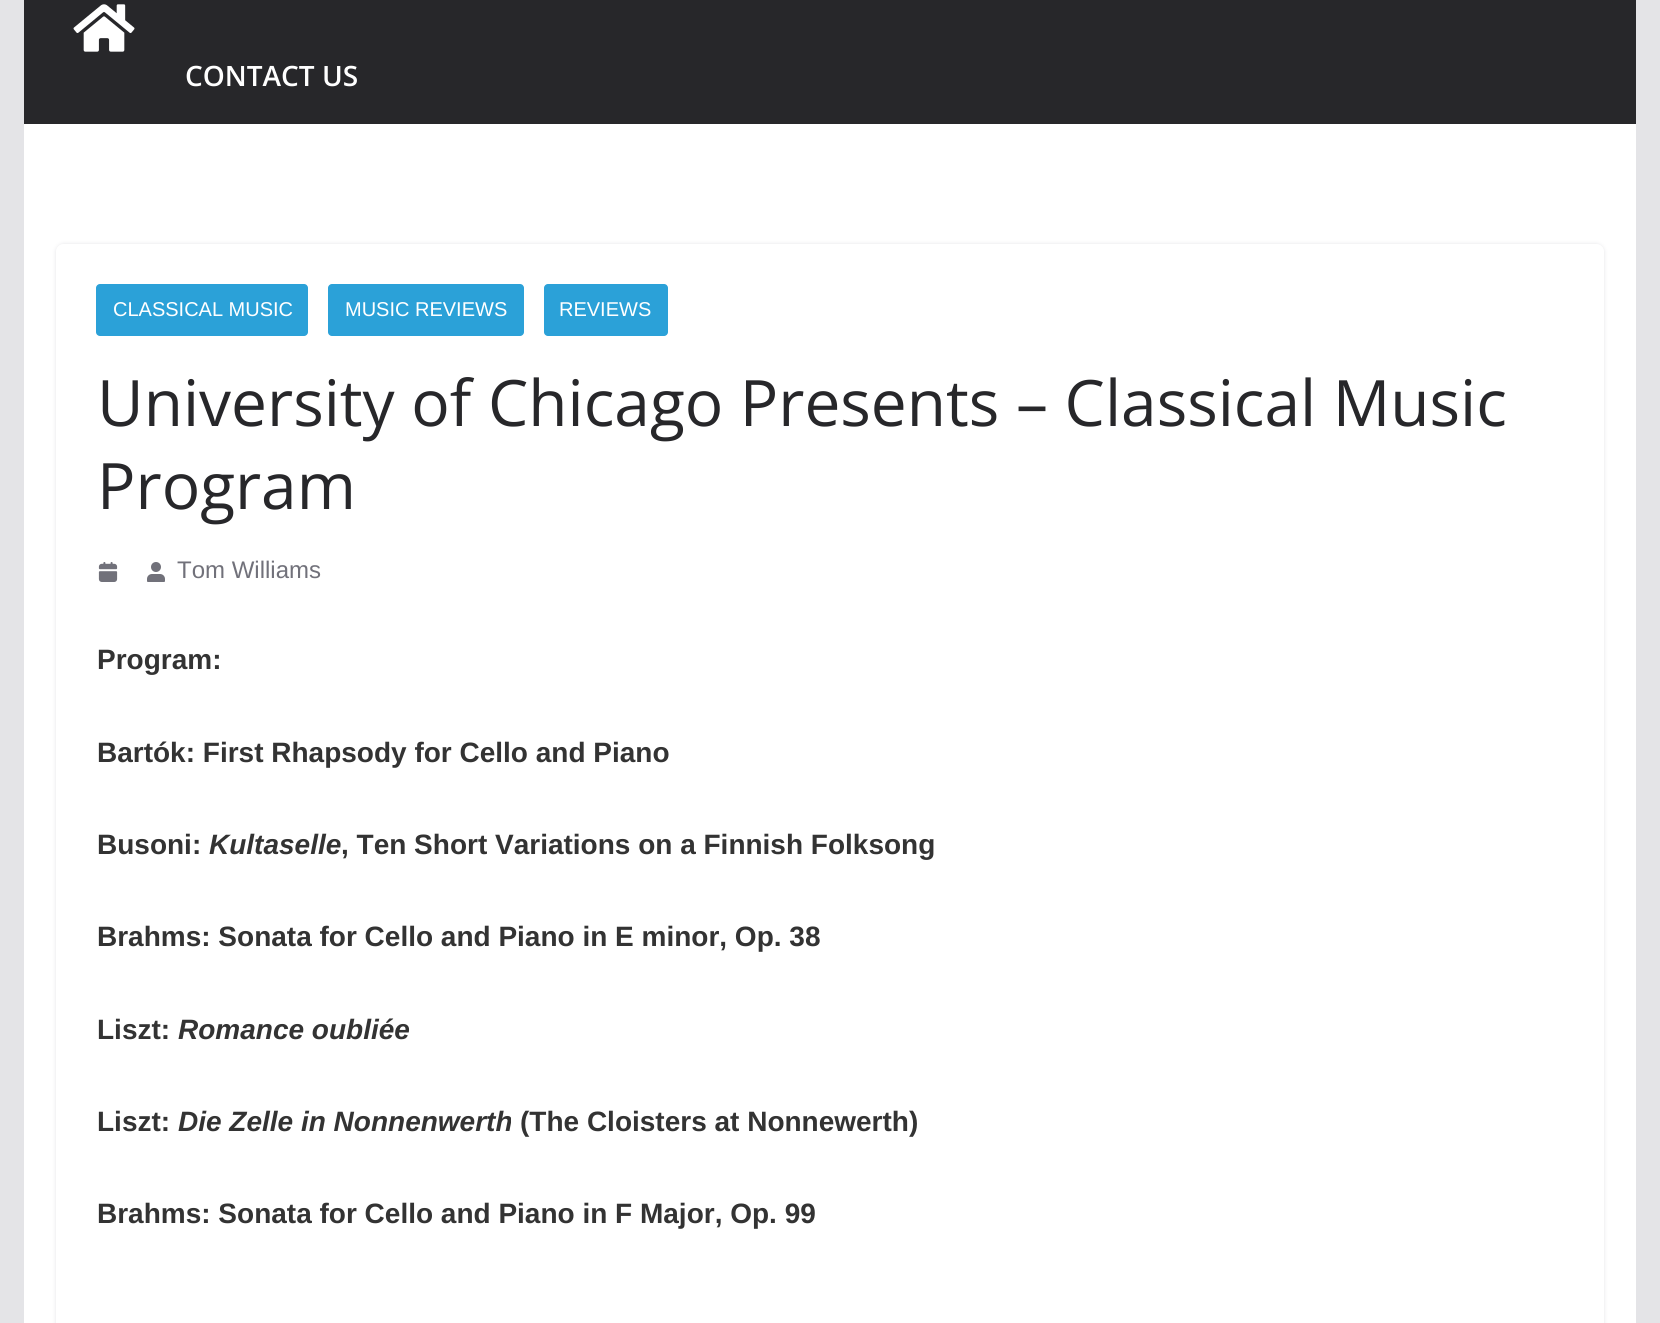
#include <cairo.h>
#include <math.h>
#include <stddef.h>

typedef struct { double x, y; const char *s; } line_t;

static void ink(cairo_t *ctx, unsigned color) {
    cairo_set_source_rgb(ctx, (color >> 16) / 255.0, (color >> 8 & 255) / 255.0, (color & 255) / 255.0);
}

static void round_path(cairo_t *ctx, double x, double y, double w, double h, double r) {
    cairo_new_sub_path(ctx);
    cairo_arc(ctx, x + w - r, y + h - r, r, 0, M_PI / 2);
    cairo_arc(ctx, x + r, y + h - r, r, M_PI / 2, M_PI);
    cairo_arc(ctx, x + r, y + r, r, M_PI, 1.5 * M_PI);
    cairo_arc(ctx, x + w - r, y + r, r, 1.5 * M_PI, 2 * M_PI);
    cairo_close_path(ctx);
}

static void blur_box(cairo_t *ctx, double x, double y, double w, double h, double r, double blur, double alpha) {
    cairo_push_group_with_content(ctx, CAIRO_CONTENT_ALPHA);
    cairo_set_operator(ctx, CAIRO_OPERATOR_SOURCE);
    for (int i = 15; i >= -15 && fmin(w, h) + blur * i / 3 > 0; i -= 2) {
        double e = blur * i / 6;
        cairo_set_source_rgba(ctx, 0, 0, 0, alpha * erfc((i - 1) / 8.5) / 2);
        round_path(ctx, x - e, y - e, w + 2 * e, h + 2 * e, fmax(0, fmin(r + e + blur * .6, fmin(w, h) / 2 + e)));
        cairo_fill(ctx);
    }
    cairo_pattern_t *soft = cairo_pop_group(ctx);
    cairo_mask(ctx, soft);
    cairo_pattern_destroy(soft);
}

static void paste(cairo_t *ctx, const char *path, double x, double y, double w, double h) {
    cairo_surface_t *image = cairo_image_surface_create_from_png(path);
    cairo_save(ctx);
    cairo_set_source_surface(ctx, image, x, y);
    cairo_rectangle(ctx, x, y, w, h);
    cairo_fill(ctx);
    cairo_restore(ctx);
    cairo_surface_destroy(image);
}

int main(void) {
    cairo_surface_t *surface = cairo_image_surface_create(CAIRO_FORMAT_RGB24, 1660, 1323);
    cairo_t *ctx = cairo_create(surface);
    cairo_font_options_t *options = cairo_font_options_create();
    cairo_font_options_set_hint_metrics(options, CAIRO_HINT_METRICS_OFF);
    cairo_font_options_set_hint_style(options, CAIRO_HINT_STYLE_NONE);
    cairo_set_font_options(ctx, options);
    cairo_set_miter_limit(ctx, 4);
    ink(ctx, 0xE4E4E7);
    cairo_paint(ctx);
    ink(ctx, 0x27272A);
    cairo_rectangle(ctx, 24, 0, 1612, 124);
    cairo_fill(ctx);
    paste(ctx, "media/1.png", 73, 4, 62, 48);
    cairo_select_font_face(ctx, "Open Sans SemiBold", CAIRO_FONT_SLANT_NORMAL, CAIRO_FONT_WEIGHT_NORMAL);
    cairo_set_font_size(ctx, 28);
    ink(ctx, 0xFFFFFF);
    cairo_move_to(ctx, 185, 86);
    cairo_show_text(ctx, "CONTACT US");
    cairo_rectangle(ctx, 24, 124, 1612, 1199);
    cairo_fill(ctx);
    cairo_save(ctx);
    cairo_set_fill_rule(ctx, CAIRO_FILL_RULE_EVEN_ODD);
    cairo_new_path(ctx);
    cairo_move_to(ctx, 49, 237);
    cairo_line_to(ctx, 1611, 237);
    cairo_line_to(ctx, 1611, 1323);
    cairo_line_to(ctx, 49, 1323);
    cairo_close_path(ctx);
    cairo_move_to(ctx, 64, 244);
    cairo_line_to(ctx, 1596, 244);
    cairo_curve_to(ctx, 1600.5, 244, 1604, 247.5, 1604, 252);
    cairo_line_to(ctx, 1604, 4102);
    cairo_curve_to(ctx, 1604, 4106.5, 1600.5, 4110, 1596, 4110);
    cairo_line_to(ctx, 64, 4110);
    cairo_curve_to(ctx, 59.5, 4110, 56, 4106.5, 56, 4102);
    cairo_line_to(ctx, 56, 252);
    cairo_curve_to(ctx, 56, 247.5, 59.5, 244, 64, 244);
    cairo_close_path(ctx);
    cairo_clip(ctx);
    ink(ctx, 0xE4E4E7);
    blur_box(ctx, 56, 244, 1548, 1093, 8, 2, 1);
    cairo_restore(ctx);
    ink(ctx, 0x2BA1D8);
    round_path(ctx, 96, 284, 212, 52, 4);
    cairo_fill(ctx);
    cairo_select_font_face(ctx, "Liberation Sans", CAIRO_FONT_SLANT_NORMAL, CAIRO_FONT_WEIGHT_NORMAL);
    cairo_set_font_size(ctx, 20);
    ink(ctx, 0xFFFFFF);
    cairo_move_to(ctx, 113, 316);
    cairo_show_text(ctx, "CLASSICAL MUSIC");
    ink(ctx, 0x2BA1D8);
    round_path(ctx, 328, 284, 196, 52, 4);
    cairo_fill(ctx);
    ink(ctx, 0xFFFFFF);
    cairo_move_to(ctx, 345, 316);
    cairo_show_text(ctx, "MUSIC REVIEWS");
    ink(ctx, 0x2BA1D8);
    round_path(ctx, 544, 284, 124, 52, 4);
    cairo_fill(ctx);
    ink(ctx, 0xFFFFFF);
    cairo_move_to(ctx, 559, 316);
    cairo_show_text(ctx, "REVIEWS");
    cairo_select_font_face(ctx, "Open Sans", CAIRO_FONT_SLANT_NORMAL, CAIRO_FONT_WEIGHT_NORMAL);
    cairo_set_font_size(ctx, 64);
    ink(ctx, 0x27272A);
    cairo_move_to(ctx, 97, 426);
    cairo_show_text(ctx, "University of Chicago Presents – Classical Music");
    cairo_move_to(ctx, 97, 509);
    cairo_show_text(ctx, "Program");
    paste(ctx, "media/2.png", 98, 562, 20, 20);
    paste(ctx, "media/3.png", 147, 562, 18, 20);
    cairo_select_font_face(ctx, "Liberation Sans", CAIRO_FONT_SLANT_NORMAL, CAIRO_FONT_WEIGHT_NORMAL);
    cairo_set_font_size(ctx, 24);
    ink(ctx, 0x71717A);
    cairo_move_to(ctx, 177, 578);
    cairo_show_text(ctx, "Tom Williams");
    cairo_select_font_face(ctx, "Liberation Sans", CAIRO_FONT_SLANT_NORMAL, CAIRO_FONT_WEIGHT_BOLD);
    cairo_set_font_size(ctx, 28);
    ink(ctx, 0x333333);
    {
        static const line_t items[] = {
            {97, 669, "Program:"},
            {97, 762, "Bartók: First Rhapsody for Cello and Piano"},
            {97, 854, "Busoni:"},
        };
        for (size_t i = 0; i < sizeof items / sizeof *items; i++) {
            cairo_move_to(ctx, items[i].x, items[i].y);
            cairo_show_text(ctx, items[i].s);
        }
    }
    cairo_select_font_face(ctx, "Liberation Sans", CAIRO_FONT_SLANT_ITALIC, CAIRO_FONT_WEIGHT_BOLD);
    cairo_move_to(ctx, 209, 854);
    cairo_show_text(ctx, "Kultaselle");
    cairo_select_font_face(ctx, "Liberation Sans", CAIRO_FONT_SLANT_NORMAL, CAIRO_FONT_WEIGHT_BOLD);
    {
        static const line_t items[] = {
            {341, 854, ", Ten Short Variations on a Finnish Folksong"},
            {97, 946, "Brahms: Sonata for Cello and Piano in E minor, Op. 38"},
            {97, 1039, "Liszt:"},
        };
        for (size_t i = 0; i < sizeof items / sizeof *items; i++) {
            cairo_move_to(ctx, items[i].x, items[i].y);
            cairo_show_text(ctx, items[i].s);
        }
    }
    cairo_select_font_face(ctx, "Liberation Sans", CAIRO_FONT_SLANT_ITALIC, CAIRO_FONT_WEIGHT_BOLD);
    cairo_move_to(ctx, 178, 1039);
    cairo_show_text(ctx, "Romance oubliée");
    cairo_select_font_face(ctx, "Liberation Sans", CAIRO_FONT_SLANT_NORMAL, CAIRO_FONT_WEIGHT_BOLD);
    cairo_move_to(ctx, 97, 1131);
    cairo_show_text(ctx, "Liszt:");
    cairo_select_font_face(ctx, "Liberation Sans", CAIRO_FONT_SLANT_ITALIC, CAIRO_FONT_WEIGHT_BOLD);
    cairo_move_to(ctx, 178, 1131);
    cairo_show_text(ctx, "Die Zelle in Nonnenwerth");
    cairo_select_font_face(ctx, "Liberation Sans", CAIRO_FONT_SLANT_NORMAL, CAIRO_FONT_WEIGHT_BOLD);
    cairo_move_to(ctx, 520, 1131);
    cairo_show_text(ctx, "(The Cloisters at Nonnewerth)");
    cairo_move_to(ctx, 97, 1223);
    cairo_show_text(ctx, "Brahms: Sonata for Cello and Piano in F Major, Op. 99");
    cairo_surface_write_to_png(surface, "image.png");
    cairo_font_options_destroy(options);
    cairo_destroy(ctx);
    cairo_surface_destroy(surface);
    return 0;
}
